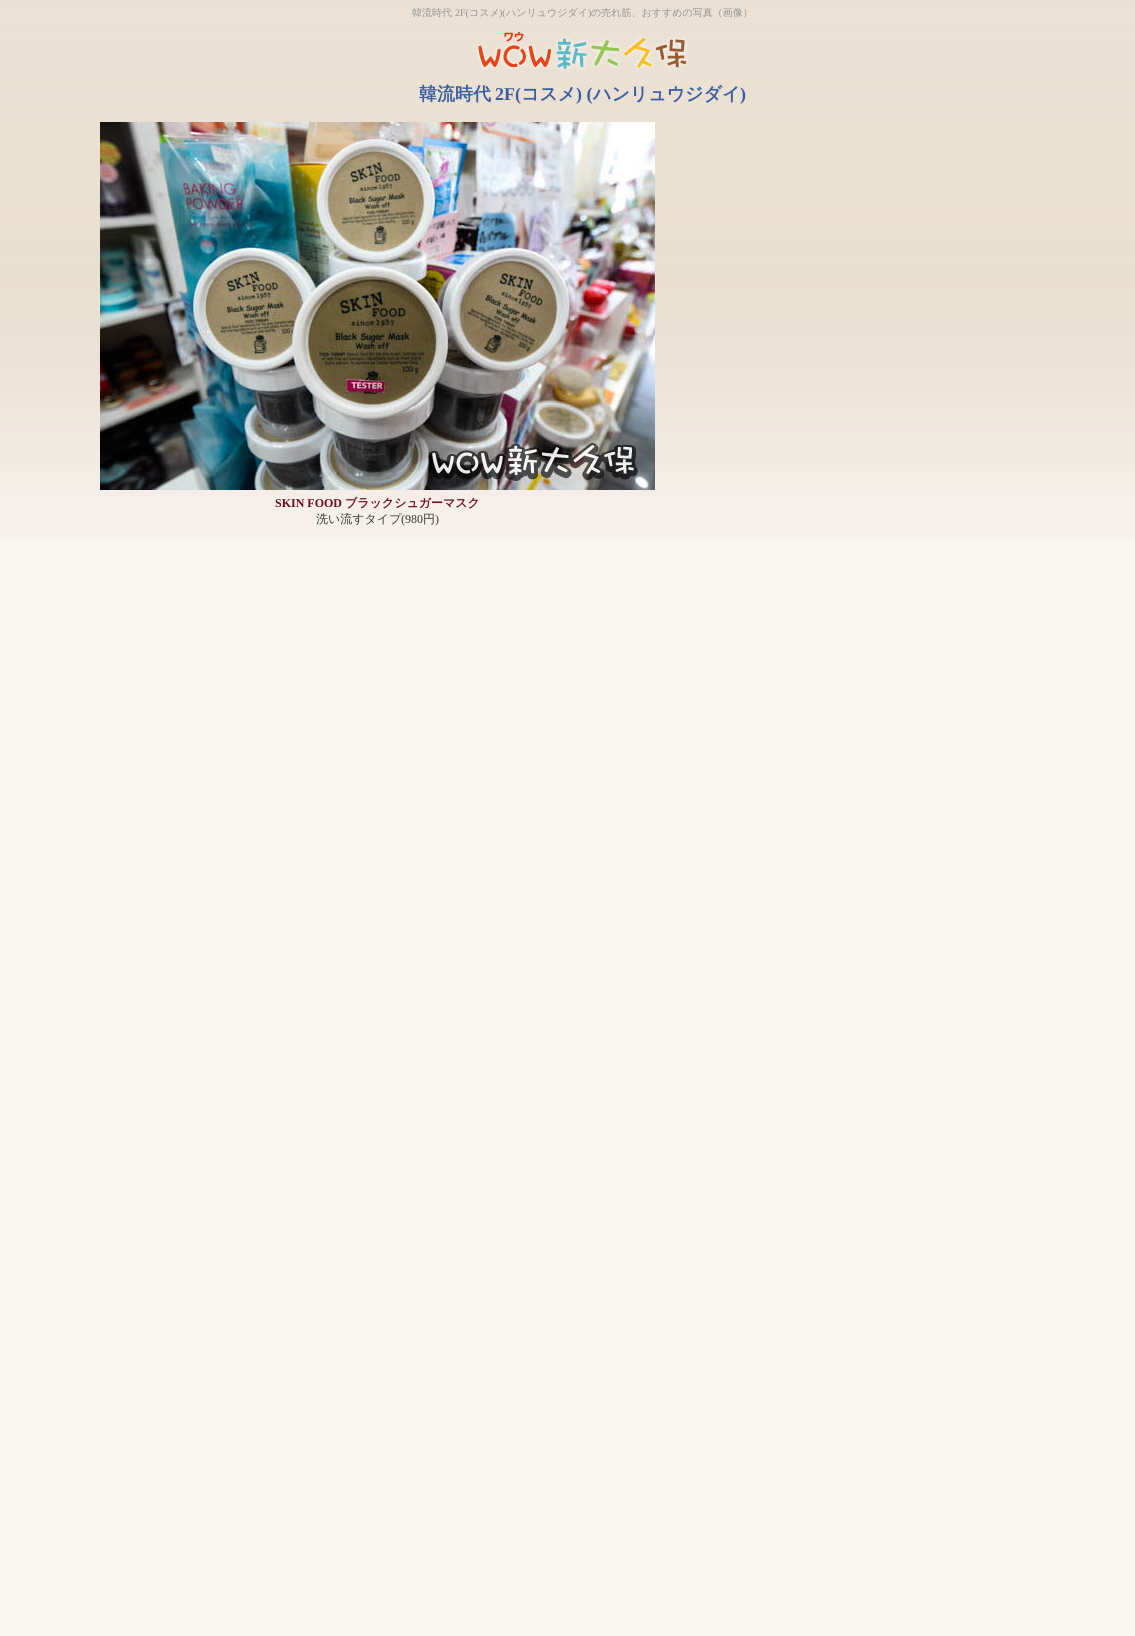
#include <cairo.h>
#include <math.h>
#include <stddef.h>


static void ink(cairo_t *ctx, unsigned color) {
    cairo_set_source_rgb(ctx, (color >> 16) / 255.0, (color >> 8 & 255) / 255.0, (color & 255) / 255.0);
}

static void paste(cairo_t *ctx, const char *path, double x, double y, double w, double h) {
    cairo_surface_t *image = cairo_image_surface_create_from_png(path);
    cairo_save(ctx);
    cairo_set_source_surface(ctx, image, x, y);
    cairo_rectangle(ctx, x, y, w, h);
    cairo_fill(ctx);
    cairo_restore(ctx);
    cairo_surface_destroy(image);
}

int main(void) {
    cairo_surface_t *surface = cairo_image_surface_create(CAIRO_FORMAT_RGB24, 1135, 1636);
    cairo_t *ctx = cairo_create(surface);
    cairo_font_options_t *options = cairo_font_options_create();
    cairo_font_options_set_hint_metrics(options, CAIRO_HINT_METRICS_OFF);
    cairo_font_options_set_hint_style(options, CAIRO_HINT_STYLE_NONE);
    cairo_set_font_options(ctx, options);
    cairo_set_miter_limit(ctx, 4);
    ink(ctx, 0xF9F6F1);
    cairo_paint(ctx);
    paste(ctx, "media/1.png", 0, 0, 1135, 540);
    cairo_select_font_face(ctx, "WenQuanYi Zen Hei Medium", CAIRO_FONT_SLANT_NORMAL, CAIRO_FONT_WEIGHT_NORMAL);
    cairo_set_font_size(ctx, 10);
    ink(ctx, 0x939393);
    cairo_move_to(ctx, 412, 16);
    cairo_show_text(ctx, "韓流時代");
    cairo_select_font_face(ctx, "Liberation Serif", CAIRO_FONT_SLANT_NORMAL, CAIRO_FONT_WEIGHT_NORMAL);
    cairo_move_to(ctx, 455, 16);
    cairo_show_text(ctx, "2F(");
    cairo_select_font_face(ctx, "WenQuanYi Zen Hei Medium", CAIRO_FONT_SLANT_NORMAL, CAIRO_FONT_WEIGHT_NORMAL);
    cairo_move_to(ctx, 469, 16);
    cairo_show_text(ctx, "コスメ");
    cairo_select_font_face(ctx, "Liberation Serif", CAIRO_FONT_SLANT_NORMAL, CAIRO_FONT_WEIGHT_NORMAL);
    cairo_move_to(ctx, 499, 16);
    cairo_show_text(ctx, ")(");
    cairo_select_font_face(ctx, "WenQuanYi Zen Hei Medium", CAIRO_FONT_SLANT_NORMAL, CAIRO_FONT_WEIGHT_NORMAL);
    cairo_move_to(ctx, 506, 16);
    cairo_show_text(ctx, "ハンリュウジダイ");
    cairo_select_font_face(ctx, "Liberation Serif", CAIRO_FONT_SLANT_NORMAL, CAIRO_FONT_WEIGHT_NORMAL);
    cairo_move_to(ctx, 588, 16);
    cairo_show_text(ctx, ")");
    cairo_select_font_face(ctx, "WenQuanYi Zen Hei Medium", CAIRO_FONT_SLANT_NORMAL, CAIRO_FONT_WEIGHT_NORMAL);
    cairo_move_to(ctx, 591, 16);
    cairo_show_text(ctx, "の売れ筋、おすすめの写真（画像）");
    paste(ctx, "media/2.png", 476, 32, 212, 39);
    cairo_select_font_face(ctx, "WenQuanYi Zen Hei", CAIRO_FONT_SLANT_NORMAL, CAIRO_FONT_WEIGHT_BOLD);
    cairo_set_font_size(ctx, 18);
    ink(ctx, 0x3A5DA1);
    cairo_move_to(ctx, 419, 100);
    cairo_show_text(ctx, "韓流時代");
    cairo_select_font_face(ctx, "Liberation Serif", CAIRO_FONT_SLANT_NORMAL, CAIRO_FONT_WEIGHT_BOLD);
    cairo_move_to(ctx, 495, 100);
    cairo_show_text(ctx, "2F(");
    cairo_select_font_face(ctx, "WenQuanYi Zen Hei", CAIRO_FONT_SLANT_NORMAL, CAIRO_FONT_WEIGHT_BOLD);
    cairo_move_to(ctx, 521, 100);
    cairo_show_text(ctx, "コスメ");
    cairo_select_font_face(ctx, "Liberation Serif", CAIRO_FONT_SLANT_NORMAL, CAIRO_FONT_WEIGHT_BOLD);
    cairo_move_to(ctx, 576, 100);
    cairo_show_text(ctx, ") (");
    cairo_select_font_face(ctx, "WenQuanYi Zen Hei", CAIRO_FONT_SLANT_NORMAL, CAIRO_FONT_WEIGHT_BOLD);
    cairo_move_to(ctx, 593, 100);
    cairo_show_text(ctx, "ハンリュウジダイ");
    cairo_select_font_face(ctx, "Liberation Serif", CAIRO_FONT_SLANT_NORMAL, CAIRO_FONT_WEIGHT_BOLD);
    cairo_move_to(ctx, 740, 100);
    cairo_show_text(ctx, ")");
    paste(ctx, "media/3.png", 100, 122, 555, 368);
    cairo_set_font_size(ctx, 12);
    ink(ctx, 0x6B0D21);
    cairo_move_to(ctx, 275, 507);
    cairo_show_text(ctx, "SKIN FOOD");
    cairo_select_font_face(ctx, "WenQuanYi Zen Hei", CAIRO_FONT_SLANT_NORMAL, CAIRO_FONT_WEIGHT_BOLD);
    cairo_move_to(ctx, 345, 507);
    cairo_show_text(ctx, "ブラックシュガーマスク");
    cairo_select_font_face(ctx, "WenQuanYi Zen Hei Medium", CAIRO_FONT_SLANT_NORMAL, CAIRO_FONT_WEIGHT_NORMAL);
    ink(ctx, 0x393939);
    cairo_move_to(ctx, 316, 523);
    cairo_show_text(ctx, "洗い流すタイプ");
    cairo_select_font_face(ctx, "Liberation Serif", CAIRO_FONT_SLANT_NORMAL, CAIRO_FONT_WEIGHT_NORMAL);
    cairo_move_to(ctx, 401, 523);
    cairo_show_text(ctx, "(980");
    cairo_select_font_face(ctx, "WenQuanYi Zen Hei Medium", CAIRO_FONT_SLANT_NORMAL, CAIRO_FONT_WEIGHT_NORMAL);
    cairo_move_to(ctx, 423, 523);
    cairo_show_text(ctx, "円");
    cairo_select_font_face(ctx, "Liberation Serif", CAIRO_FONT_SLANT_NORMAL, CAIRO_FONT_WEIGHT_NORMAL);
    cairo_move_to(ctx, 435, 523);
    cairo_show_text(ctx, ")");
    cairo_surface_write_to_png(surface, "image.png");
    cairo_font_options_destroy(options);
    cairo_destroy(ctx);
    cairo_surface_destroy(surface);
    return 0;
}
